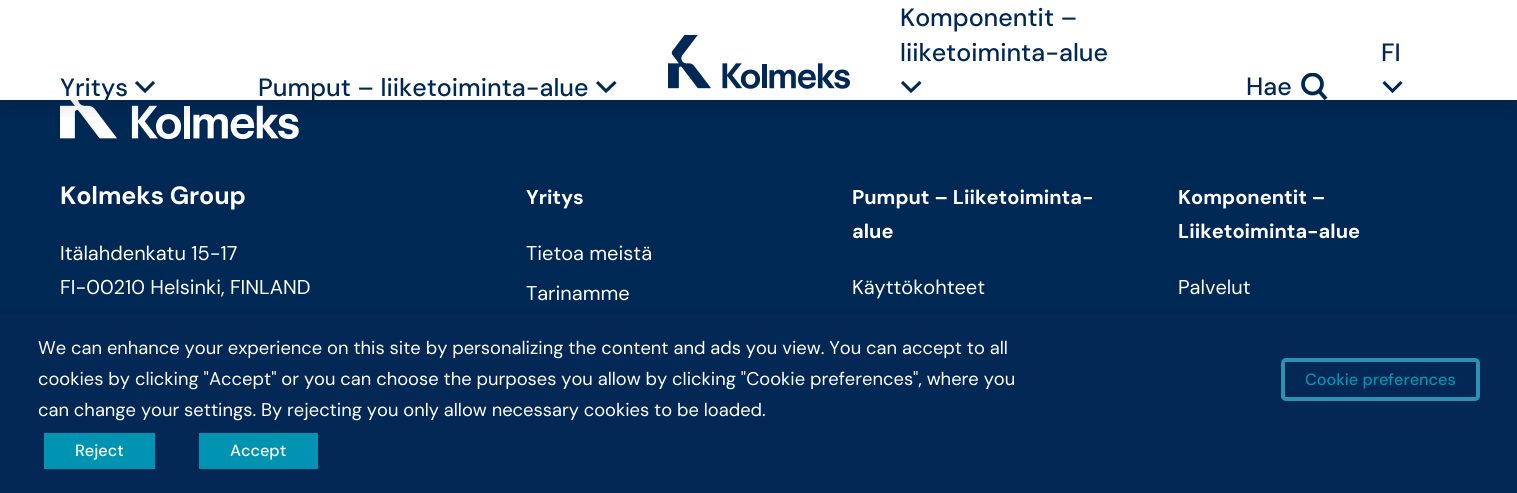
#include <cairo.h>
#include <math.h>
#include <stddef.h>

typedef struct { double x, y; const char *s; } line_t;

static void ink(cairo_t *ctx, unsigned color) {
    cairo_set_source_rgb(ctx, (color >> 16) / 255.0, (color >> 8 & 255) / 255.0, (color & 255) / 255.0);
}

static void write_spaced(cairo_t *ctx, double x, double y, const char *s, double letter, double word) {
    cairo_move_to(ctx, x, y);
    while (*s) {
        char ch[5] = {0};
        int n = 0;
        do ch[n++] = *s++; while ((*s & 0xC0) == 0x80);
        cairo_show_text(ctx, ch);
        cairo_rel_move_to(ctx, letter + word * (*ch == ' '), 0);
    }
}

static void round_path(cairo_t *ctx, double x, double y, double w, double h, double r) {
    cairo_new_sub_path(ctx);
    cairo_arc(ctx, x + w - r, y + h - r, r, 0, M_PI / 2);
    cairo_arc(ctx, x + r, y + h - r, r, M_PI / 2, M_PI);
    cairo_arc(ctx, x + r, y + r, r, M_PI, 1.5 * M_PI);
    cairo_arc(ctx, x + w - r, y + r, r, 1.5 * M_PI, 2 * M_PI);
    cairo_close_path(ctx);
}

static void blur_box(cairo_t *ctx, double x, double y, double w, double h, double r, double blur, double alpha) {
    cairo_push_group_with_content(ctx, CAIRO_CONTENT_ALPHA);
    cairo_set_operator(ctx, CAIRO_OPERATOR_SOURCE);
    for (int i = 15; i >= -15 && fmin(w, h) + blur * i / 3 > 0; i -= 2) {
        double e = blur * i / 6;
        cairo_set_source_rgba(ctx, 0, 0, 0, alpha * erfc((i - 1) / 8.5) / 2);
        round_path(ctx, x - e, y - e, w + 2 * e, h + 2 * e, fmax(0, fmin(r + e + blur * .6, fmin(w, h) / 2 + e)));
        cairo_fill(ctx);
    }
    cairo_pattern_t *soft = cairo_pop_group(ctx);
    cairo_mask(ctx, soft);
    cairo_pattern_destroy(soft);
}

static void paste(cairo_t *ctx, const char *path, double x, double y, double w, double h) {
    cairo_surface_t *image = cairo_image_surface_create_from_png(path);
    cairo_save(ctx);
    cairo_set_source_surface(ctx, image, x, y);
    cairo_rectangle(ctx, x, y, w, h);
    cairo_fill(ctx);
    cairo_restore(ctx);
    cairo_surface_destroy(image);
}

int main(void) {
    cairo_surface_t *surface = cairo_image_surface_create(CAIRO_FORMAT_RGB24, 1517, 493);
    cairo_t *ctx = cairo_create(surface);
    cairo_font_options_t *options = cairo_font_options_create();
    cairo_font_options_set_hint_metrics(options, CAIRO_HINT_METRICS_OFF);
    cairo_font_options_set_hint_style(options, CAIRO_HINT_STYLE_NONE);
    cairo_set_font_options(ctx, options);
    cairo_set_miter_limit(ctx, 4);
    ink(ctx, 0x002855);
    cairo_paint(ctx);
    ink(ctx, 0xFFFFFF);
    cairo_rectangle(ctx, 0, 0, 1517, 100);
    cairo_fill(ctx);
    paste(ctx, "media/2.png", 60, 100, 239, 40);
    cairo_save(ctx);
    cairo_rectangle(ctx, 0, 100, 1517, 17);
    cairo_clip(ctx);
    ink(ctx, 0x000000);
    blur_box(ctx, 4, 16, 1510, 93, 0, 9.5, 0.1);
    cairo_restore(ctx);
    cairo_select_font_face(ctx, "DM Sans Medium", CAIRO_FONT_SLANT_NORMAL, CAIRO_FONT_WEIGHT_NORMAL);
    cairo_set_font_size(ctx, 25);
    ink(ctx, 0x002855);
    cairo_move_to(ctx, 60, 96);
    cairo_show_text(ctx, "Yritys");
    cairo_new_path(ctx);
    cairo_move_to(ctx, 136, 82);
    cairo_line_to(ctx, 145, 91);
    cairo_line_to(ctx, 154, 82);
    cairo_set_line_width(ctx, 3.1);
    cairo_stroke(ctx);
    cairo_move_to(ctx, 258, 96);
    cairo_show_text(ctx, "Pumput – liiketoiminta-alue");
    cairo_new_path(ctx);
    cairo_move_to(ctx, 597, 82);
    cairo_line_to(ctx, 606, 91);
    cairo_line_to(ctx, 615.5, 82);
    cairo_stroke(ctx);
    paste(ctx, "media/1.png", 668, 35, 182, 54);
    cairo_move_to(ctx, 900, 26);
    cairo_show_text(ctx, "Komponentit –");
    cairo_move_to(ctx, 900, 61);
    cairo_show_text(ctx, "liiketoiminta-alue");
    cairo_new_path(ctx);
    cairo_move_to(ctx, 902, 82);
    cairo_line_to(ctx, 911, 91);
    cairo_line_to(ctx, 920.5, 82);
    cairo_stroke(ctx);
    cairo_move_to(ctx, 1381, 61);
    cairo_show_text(ctx, "FI");
    cairo_new_path(ctx);
    cairo_move_to(ctx, 1383.5, 82);
    cairo_line_to(ctx, 1392.5, 91);
    cairo_line_to(ctx, 1401.5, 82);
    cairo_stroke(ctx);
    cairo_move_to(ctx, 1246, 95);
    cairo_show_text(ctx, "Hae");
    cairo_save(ctx);
    cairo_rectangle(ctx, 1301, 73, 28, 28);
    cairo_clip(ctx);
    cairo_arc(ctx, 1312.5, 84, 9.5, 0, 2 * M_PI);
    cairo_set_line_width(ctx, 3.8);
    cairo_stroke(ctx);
    cairo_restore(ctx);
    cairo_new_path(ctx);
    cairo_move_to(ctx, 1319, 91);
    cairo_line_to(ctx, 1326, 99);
    cairo_set_line_width(ctx, 3.8);
    cairo_stroke(ctx);
    cairo_select_font_face(ctx, "DM Sans", CAIRO_FONT_SLANT_NORMAL, CAIRO_FONT_WEIGHT_BOLD);
    ink(ctx, 0xFFFFFF);
    write_spaced(ctx, 60, 204, "Kolmeks Group", -0.1, 0);
    cairo_select_font_face(ctx, "DM Sans", CAIRO_FONT_SLANT_NORMAL, CAIRO_FONT_WEIGHT_NORMAL);
    cairo_set_font_size(ctx, 20);
    cairo_move_to(ctx, 60, 260);
    cairo_show_text(ctx, "Itälahdenkatu 15-17");
    cairo_move_to(ctx, 60, 294);
    cairo_show_text(ctx, "FI-00210 Helsinki, FINLAND");
    cairo_select_font_face(ctx, "DM Sans", CAIRO_FONT_SLANT_NORMAL, CAIRO_FONT_WEIGHT_BOLD);
    cairo_move_to(ctx, 526, 204);
    cairo_show_text(ctx, "Yritys");
    cairo_select_font_face(ctx, "DM Sans", CAIRO_FONT_SLANT_NORMAL, CAIRO_FONT_WEIGHT_NORMAL);
    cairo_move_to(ctx, 526, 260);
    cairo_show_text(ctx, "Tietoa meistä");
    cairo_move_to(ctx, 526, 300);
    cairo_show_text(ctx, "Tarinamme");
    cairo_select_font_face(ctx, "DM Sans", CAIRO_FONT_SLANT_NORMAL, CAIRO_FONT_WEIGHT_BOLD);
    cairo_move_to(ctx, 852, 204);
    cairo_show_text(ctx, "Pumput – Liiketoiminta-");
    cairo_move_to(ctx, 852, 238);
    cairo_show_text(ctx, "alue");
    cairo_select_font_face(ctx, "DM Sans", CAIRO_FONT_SLANT_NORMAL, CAIRO_FONT_WEIGHT_NORMAL);
    cairo_move_to(ctx, 852, 294);
    cairo_show_text(ctx, "Käyttökohteet");
    cairo_select_font_face(ctx, "DM Sans", CAIRO_FONT_SLANT_NORMAL, CAIRO_FONT_WEIGHT_BOLD);
    cairo_move_to(ctx, 1178, 204);
    cairo_show_text(ctx, "Komponentit –");
    cairo_move_to(ctx, 1178, 238);
    cairo_show_text(ctx, "Liiketoiminta-alue");
    cairo_select_font_face(ctx, "DM Sans", CAIRO_FONT_SLANT_NORMAL, CAIRO_FONT_WEIGHT_NORMAL);
    cairo_move_to(ctx, 1178, 294);
    cairo_show_text(ctx, "Palvelut");
    ink(ctx, 0x000000);
    blur_box(ctx, 0, 320, 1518, 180, 0, 6, 0.5);
    ink(ctx, 0x042855);
    cairo_rectangle(ctx, 0, 314, 1517, 179);
    cairo_fill(ctx);
    cairo_set_font_size(ctx, 18.33);
    ink(ctx, 0xFFFFFF);
    {
        static const line_t items[] = {
            {38, 354, "We can enhance your experience on this site by personalizing the content and ads you view. You can accept to all"},
            {38, 385, "cookies by clicking \"Accept\" or you can choose the purposes you allow by clicking \"Cookie preferences\", where you"},
            {38, 416, "can change your settings. By rejecting you only allow necessary cookies to be loaded."},
        };
        for (size_t i = 0; i < sizeof items / sizeof *items; i++) {
            cairo_move_to(ctx, items[i].x, items[i].y);
            cairo_show_text(ctx, items[i].s);
        }
    }
    round_path(ctx, 1283, 360, 195, 39, 3);
    ink(ctx, 0x2B92B1);
    cairo_set_line_width(ctx, 4);
    cairo_stroke(ctx);
    cairo_select_font_face(ctx, "DM Sans Medium", CAIRO_FONT_SLANT_NORMAL, CAIRO_FONT_WEIGHT_NORMAL);
    cairo_set_font_size(ctx, 16.25);
    ink(ctx, 0x0093B2);
    cairo_move_to(ctx, 1305, 385);
    cairo_show_text(ctx, "Cookie preferences");
    cairo_rectangle(ctx, 44, 433, 111, 36);
    cairo_fill(ctx);
    ink(ctx, 0xFFFFFF);
    cairo_move_to(ctx, 75, 456);
    cairo_show_text(ctx, "Reject");
    ink(ctx, 0x0093B2);
    cairo_rectangle(ctx, 199, 433, 119, 36);
    cairo_fill(ctx);
    ink(ctx, 0xFFFFFF);
    cairo_move_to(ctx, 230, 456);
    cairo_show_text(ctx, "Accept");
    cairo_surface_write_to_png(surface, "image.png");
    cairo_font_options_destroy(options);
    cairo_destroy(ctx);
    cairo_surface_destroy(surface);
    return 0;
}
